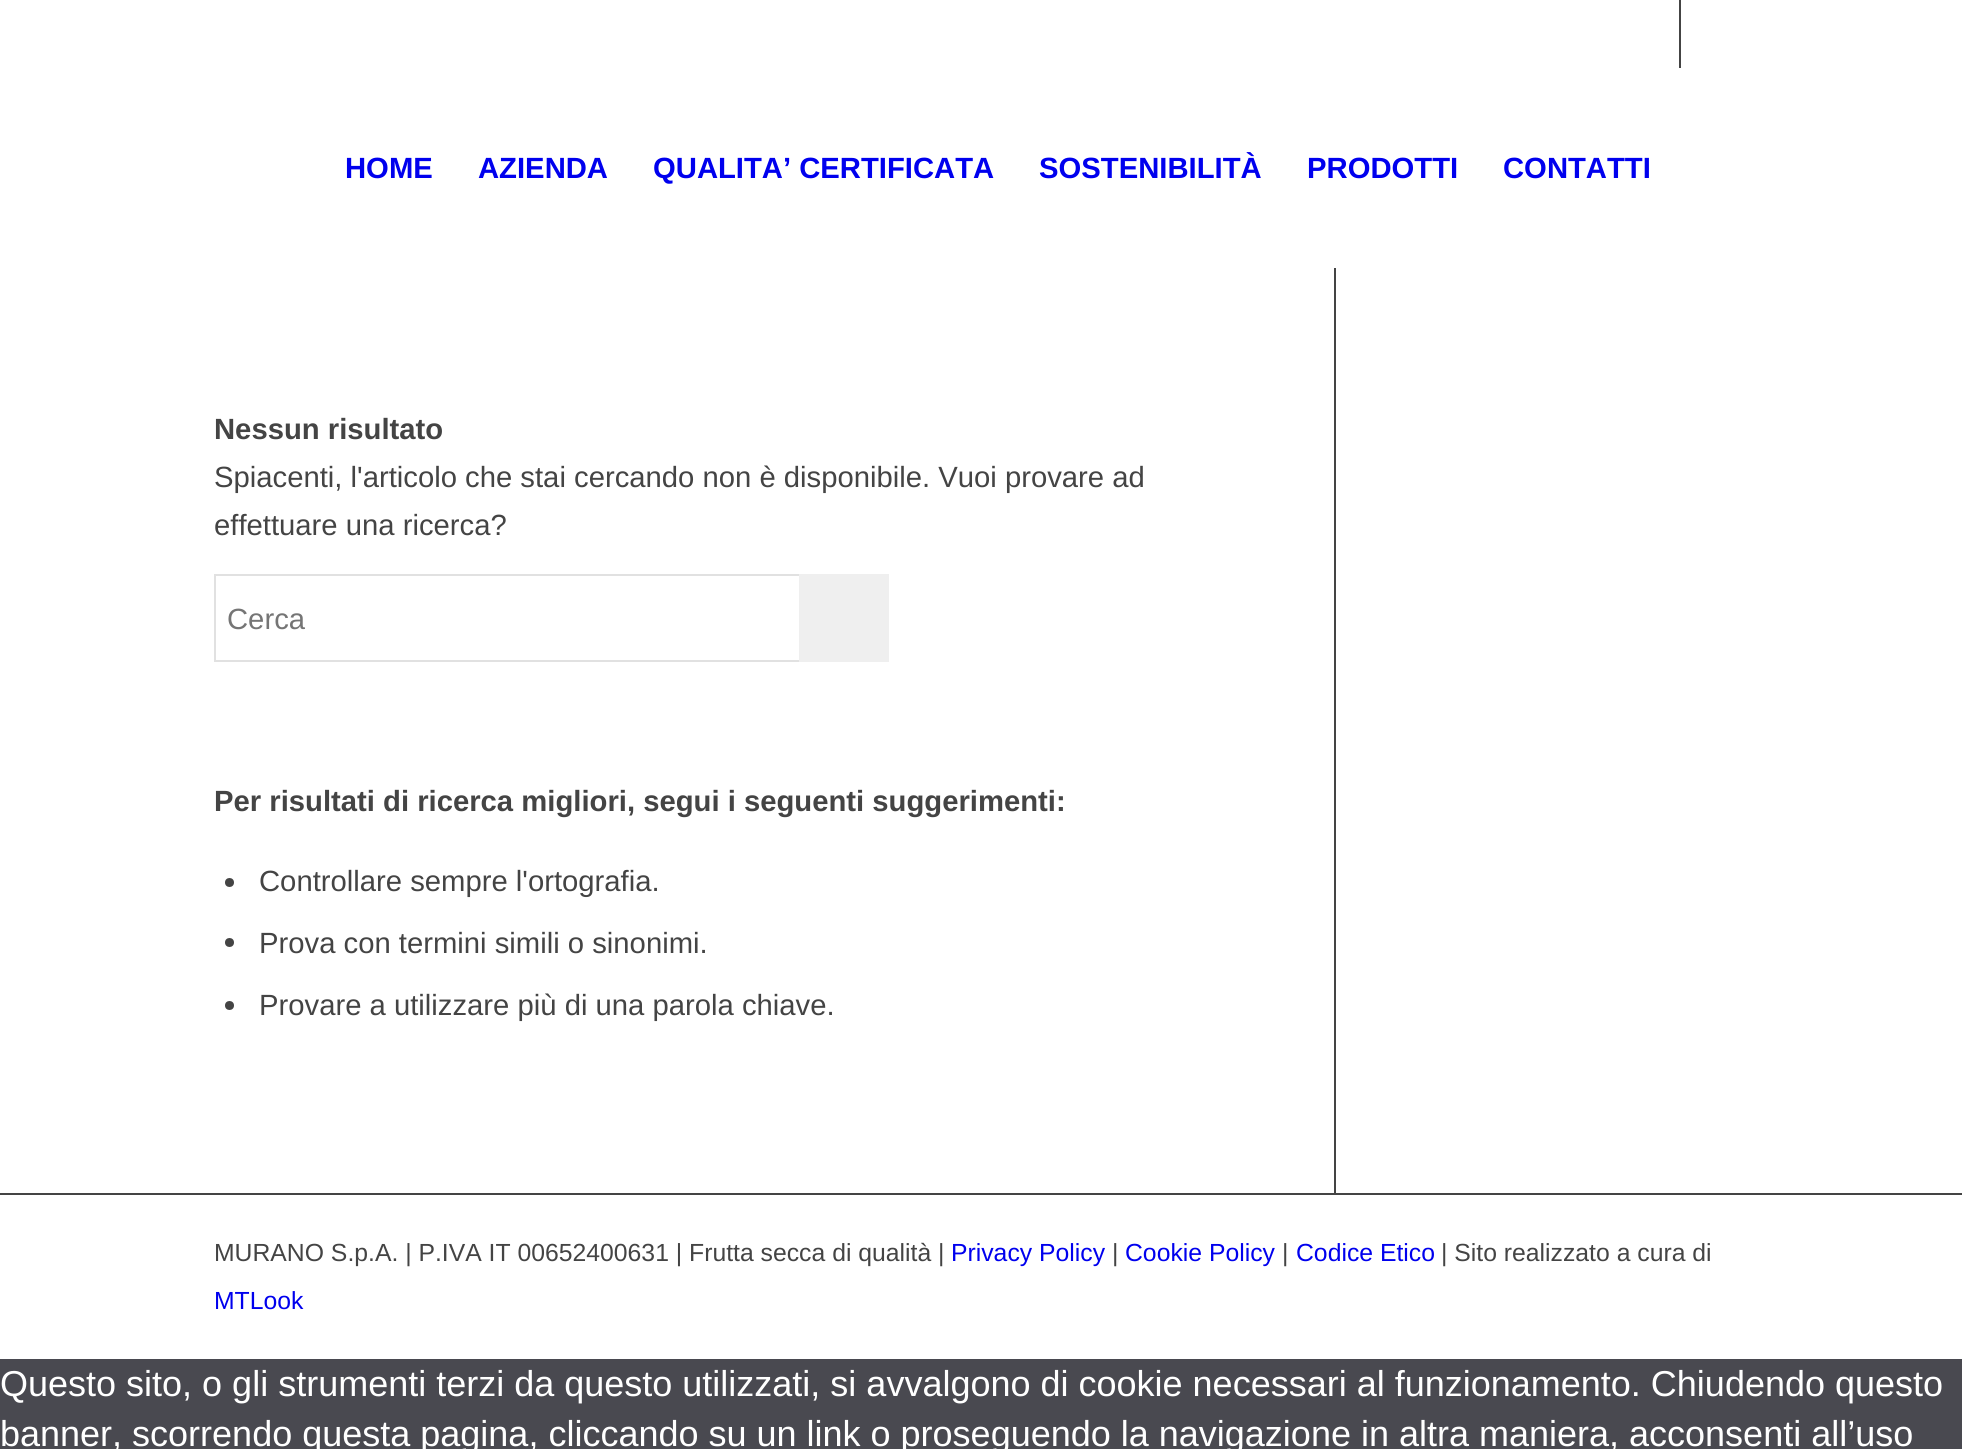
#include <cairo.h>
#include <math.h>
#include <stddef.h>

typedef struct { double x, y; const char *s; } line_t;

static void ink(cairo_t *ctx, unsigned color) {
    cairo_set_source_rgb(ctx, (color >> 16) / 255.0, (color >> 8 & 255) / 255.0, (color & 255) / 255.0);
}

int main(void) {
    cairo_surface_t *surface = cairo_image_surface_create(CAIRO_FORMAT_RGB24, 1962, 1449);
    cairo_t *ctx = cairo_create(surface);
    cairo_font_options_t *options = cairo_font_options_create();
    cairo_font_options_set_hint_metrics(options, CAIRO_HINT_METRICS_OFF);
    cairo_font_options_set_hint_style(options, CAIRO_HINT_STYLE_NONE);
    cairo_set_font_options(ctx, options);
    cairo_set_miter_limit(ctx, 4);
    ink(ctx, 0xFFFFFF);
    cairo_paint(ctx);
    ink(ctx, 0x444444);
    cairo_rectangle(ctx, 1679, 0, 2, 68);
    cairo_fill(ctx);
    cairo_select_font_face(ctx, "Liberation Sans", CAIRO_FONT_SLANT_NORMAL, CAIRO_FONT_WEIGHT_BOLD);
    cairo_set_font_size(ctx, 29.25);
    ink(ctx, 0x0000EE);
    {
        static const line_t items[] = {
            {345, 178, "HOME"},
            {478, 178, "AZIENDA"},
            {653, 178, "QUALITA’ CERTIFICATA"},
            {1039, 178, "SOSTENIBILITÀ"},
            {1307, 178, "PRODOTTI"},
            {1503, 178, "CONTATTI"},
        };
        for (size_t i = 0; i < sizeof items / sizeof *items; i++) {
            cairo_move_to(ctx, items[i].x, items[i].y);
            cairo_show_text(ctx, items[i].s);
        }
    }
    ink(ctx, 0x444444);
    cairo_rectangle(ctx, 1334, 268, 2, 925);
    cairo_fill(ctx);
    cairo_move_to(ctx, 214, 439);
    cairo_show_text(ctx, "Nessun risultato");
    cairo_select_font_face(ctx, "Liberation Sans", CAIRO_FONT_SLANT_NORMAL, CAIRO_FONT_WEIGHT_NORMAL);
    cairo_move_to(ctx, 214, 487);
    cairo_show_text(ctx, "Spiacenti, l'articolo che stai cercando non è disponibile. Vuoi provare ad");
    cairo_move_to(ctx, 214, 535);
    cairo_show_text(ctx, "effettuare una ricerca?");
    cairo_rectangle(ctx, 215, 575, 673, 86);
    ink(ctx, 0xE1E1E1);
    cairo_stroke(ctx);
    ink(ctx, 0x757575);
    cairo_move_to(ctx, 227, 629);
    cairo_show_text(ctx, "Cerca");
    ink(ctx, 0xEFEFEF);
    cairo_rectangle(ctx, 799, 574, 90, 88);
    cairo_fill(ctx);
    cairo_select_font_face(ctx, "Liberation Sans", CAIRO_FONT_SLANT_NORMAL, CAIRO_FONT_WEIGHT_BOLD);
    ink(ctx, 0x444444);
    cairo_move_to(ctx, 214, 811);
    cairo_show_text(ctx, "Per risultati di ricerca migliori, segui i seguenti suggerimenti:");
    cairo_new_path(ctx);
    cairo_arc(ctx, 229.5, 882.5, 4.5, 0, 2 * M_PI);
    cairo_fill(ctx);
    cairo_select_font_face(ctx, "Liberation Sans", CAIRO_FONT_SLANT_NORMAL, CAIRO_FONT_WEIGHT_NORMAL);
    cairo_move_to(ctx, 259, 891);
    cairo_show_text(ctx, "Controllare sempre l'ortografia.");
    cairo_new_path(ctx);
    cairo_arc(ctx, 229.5, 942.5, 4.5, 0, 2 * M_PI);
    cairo_fill(ctx);
    cairo_move_to(ctx, 259, 953);
    cairo_show_text(ctx, "Prova con termini simili o sinonimi.");
    cairo_new_path(ctx);
    cairo_arc(ctx, 229.5, 1005.5, 4.5, 0, 2 * M_PI);
    cairo_fill(ctx);
    cairo_move_to(ctx, 259, 1015);
    cairo_show_text(ctx, "Provare a utilizzare più di una parola chiave.");
    cairo_rectangle(ctx, 0, 1193, 1962, 2);
    cairo_fill(ctx);
    cairo_set_font_size(ctx, 24.75);
    cairo_move_to(ctx, 214, 1261);
    cairo_show_text(ctx, "MURANO S.p.A. | P.IVA IT 00652400631 | Frutta secca di qualità |");
    ink(ctx, 0x0000EE);
    cairo_move_to(ctx, 951, 1261);
    cairo_show_text(ctx, "Privacy Policy");
    ink(ctx, 0x444444);
    cairo_move_to(ctx, 1112, 1261);
    cairo_show_text(ctx, "|");
    ink(ctx, 0x0000EE);
    cairo_move_to(ctx, 1125, 1261);
    cairo_show_text(ctx, "Cookie Policy");
    ink(ctx, 0x444444);
    cairo_move_to(ctx, 1282, 1261);
    cairo_show_text(ctx, "|");
    ink(ctx, 0x0000EE);
    cairo_move_to(ctx, 1296, 1261);
    cairo_show_text(ctx, "Codice Etico");
    ink(ctx, 0x444444);
    cairo_move_to(ctx, 1441, 1261);
    cairo_show_text(ctx, "| Sito realizzato a cura di");
    ink(ctx, 0x0000EE);
    cairo_move_to(ctx, 214, 1309);
    cairo_show_text(ctx, "MTLook");
    ink(ctx, 0x494950);
    cairo_rectangle(ctx, 0, 1359, 1962, 90);
    cairo_fill(ctx);
    cairo_set_font_size(ctx, 36);
    ink(ctx, 0xFFFFFF);
    cairo_move_to(ctx, 0, 1396);
    cairo_show_text(ctx, "Questo sito, o gli strumenti terzi da questo utilizzati, si avvalgono di cookie necessari al funzionamento. Chiudendo questo");
    cairo_move_to(ctx, 0, 1446);
    cairo_show_text(ctx, "banner, scorrendo questa pagina, cliccando su un link o proseguendo la navigazione in altra maniera, acconsenti all’uso");
    cairo_surface_write_to_png(surface, "image.png");
    cairo_font_options_destroy(options);
    cairo_destroy(ctx);
    cairo_surface_destroy(surface);
    return 0;
}
